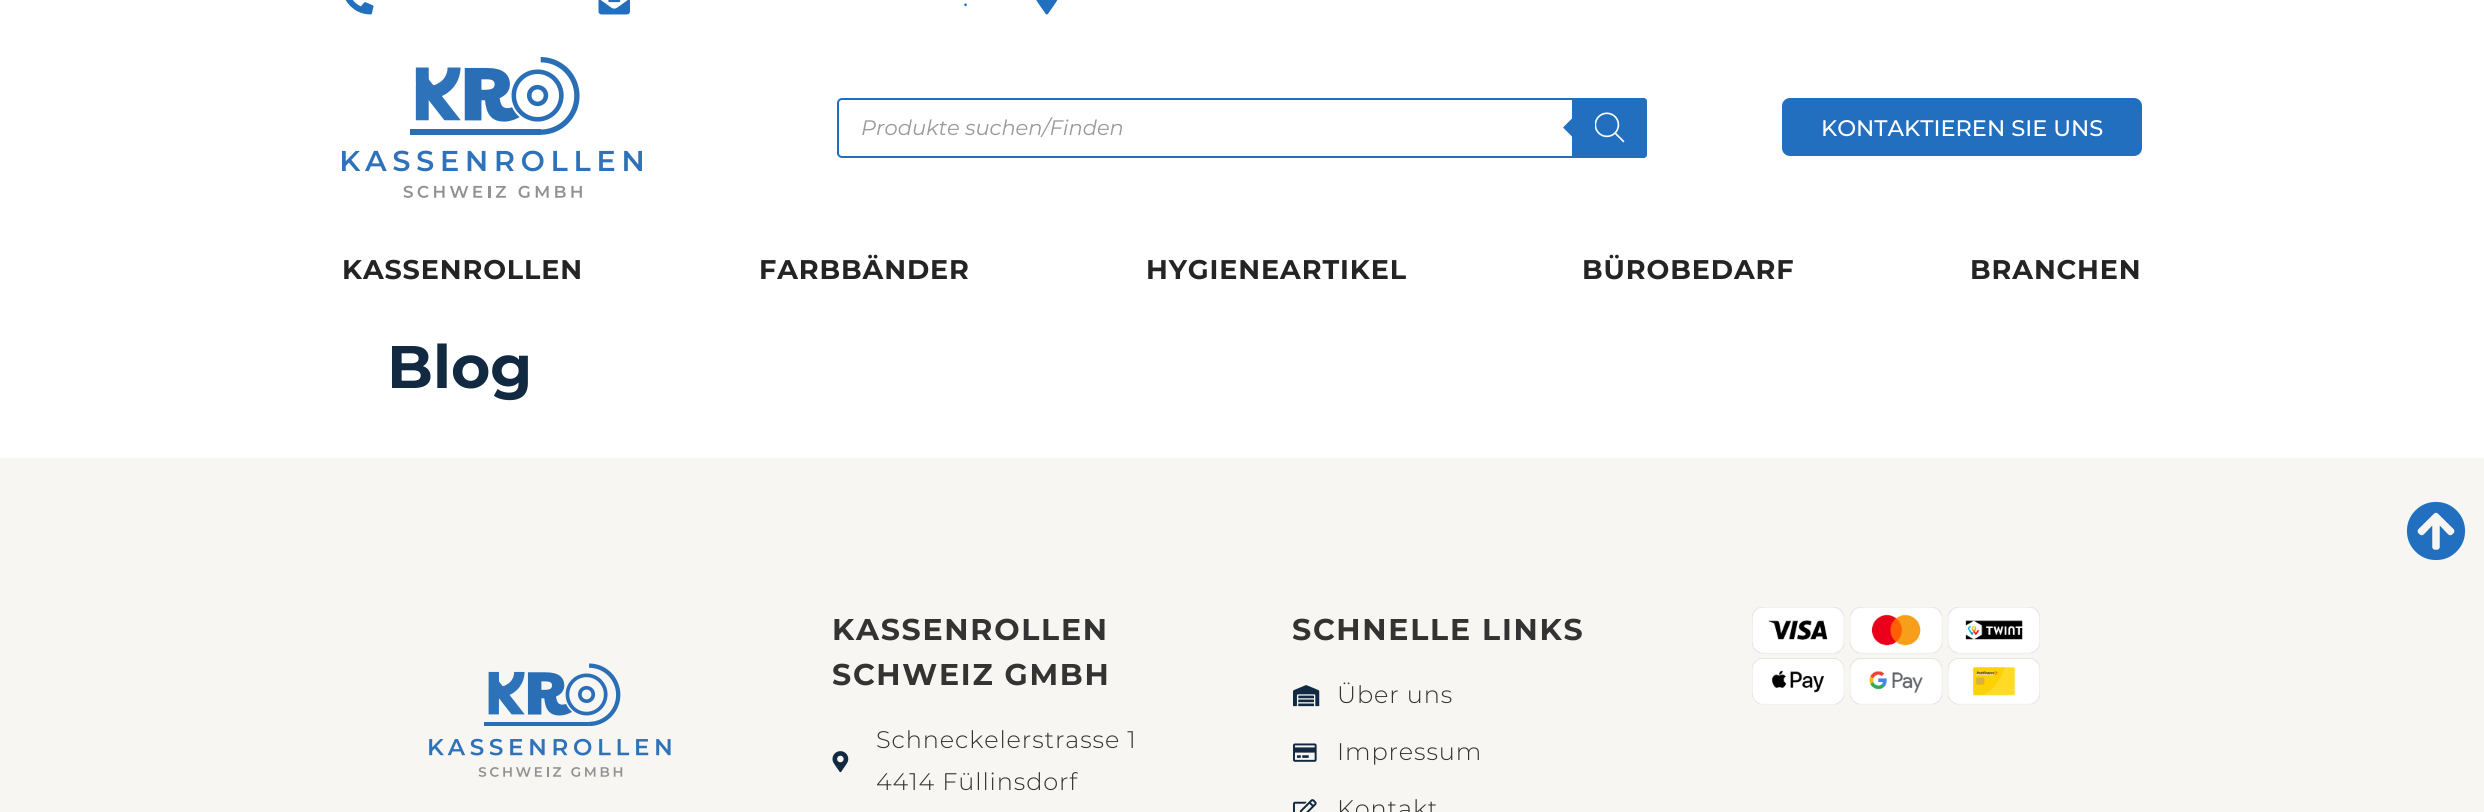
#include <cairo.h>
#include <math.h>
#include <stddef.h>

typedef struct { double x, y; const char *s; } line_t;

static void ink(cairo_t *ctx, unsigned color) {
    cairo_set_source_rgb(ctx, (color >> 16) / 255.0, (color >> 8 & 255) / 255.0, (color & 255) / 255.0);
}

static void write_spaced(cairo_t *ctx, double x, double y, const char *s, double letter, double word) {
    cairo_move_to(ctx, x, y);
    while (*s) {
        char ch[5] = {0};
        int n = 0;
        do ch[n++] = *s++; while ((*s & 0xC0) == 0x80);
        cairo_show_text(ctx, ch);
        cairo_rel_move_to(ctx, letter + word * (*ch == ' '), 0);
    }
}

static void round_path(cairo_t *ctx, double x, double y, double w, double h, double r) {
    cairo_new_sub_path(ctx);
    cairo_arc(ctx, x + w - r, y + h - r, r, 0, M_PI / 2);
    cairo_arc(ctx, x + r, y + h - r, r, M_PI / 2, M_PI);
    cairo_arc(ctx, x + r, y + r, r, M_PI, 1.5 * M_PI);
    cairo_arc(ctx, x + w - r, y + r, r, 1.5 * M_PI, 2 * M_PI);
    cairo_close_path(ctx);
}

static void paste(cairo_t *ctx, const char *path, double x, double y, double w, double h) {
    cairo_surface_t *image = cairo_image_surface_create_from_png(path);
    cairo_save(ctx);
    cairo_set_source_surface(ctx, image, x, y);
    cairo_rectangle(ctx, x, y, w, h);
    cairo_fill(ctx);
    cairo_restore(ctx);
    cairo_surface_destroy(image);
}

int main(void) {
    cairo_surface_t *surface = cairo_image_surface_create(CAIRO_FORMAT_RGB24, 2484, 812);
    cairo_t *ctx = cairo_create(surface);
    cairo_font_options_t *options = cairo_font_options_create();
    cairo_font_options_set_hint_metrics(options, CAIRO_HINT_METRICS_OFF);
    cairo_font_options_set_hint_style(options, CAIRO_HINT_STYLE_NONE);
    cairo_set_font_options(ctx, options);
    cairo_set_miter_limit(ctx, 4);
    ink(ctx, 0xFFFFFF);
    cairo_paint(ctx);
    paste(ctx, "media/1.png", 345, 0, 29, 15);
    paste(ctx, "media/2.png", 598, 0, 32, 15);
    cairo_select_font_face(ctx, "Montserrat", CAIRO_FONT_SLANT_NORMAL, CAIRO_FONT_WEIGHT_NORMAL);
    cairo_set_font_size(ctx, 24);
    ink(ctx, 0x106CCE);
    cairo_move_to(ctx, 963, 6);
    cairo_show_text(ctx, ".");
    paste(ctx, "media/3.png", 1036, 0, 22, 15);
    paste(ctx, "media/4.png", 342, 57, 300, 141);
    round_path(ctx, 838, 99, 808, 58, 4);
    ink(ctx, 0x236FBF);
    cairo_stroke(ctx);
    cairo_select_font_face(ctx, "Montserrat", CAIRO_FONT_SLANT_ITALIC, CAIRO_FONT_WEIGHT_NORMAL);
    cairo_set_font_size(ctx, 21);
    ink(ctx, 0x999999);
    cairo_move_to(ctx, 861, 135);
    cairo_show_text(ctx, "Produkte suchen/Finden");
    ink(ctx, 0x236FBF);
    cairo_new_path(ctx);
    cairo_move_to(ctx, 1572, 98);
    cairo_line_to(ctx, 1644, 98);
    cairo_curve_to(ctx, 1645.5, 98, 1647, 99.5, 1647, 101);
    cairo_line_to(ctx, 1647, 155);
    cairo_curve_to(ctx, 1647, 156.5, 1645.5, 158, 1644, 158);
    cairo_line_to(ctx, 1572, 158);
    cairo_close_path(ctx);
    cairo_fill(ctx);
    cairo_new_path(ctx);
    cairo_move_to(ctx, 1575, 115.5);
    cairo_line_to(ctx, 1575, 139.5);
    cairo_line_to(ctx, 1563, 127.5);
    cairo_close_path(ctx);
    cairo_fill(ctx);
    paste(ctx, "media/5.png", 1595, 112, 30, 31);
    round_path(ctx, 1782, 98, 360, 58, 8);
    cairo_fill(ctx);
    cairo_select_font_face(ctx, "Montserrat Medium", CAIRO_FONT_SLANT_NORMAL, CAIRO_FONT_WEIGHT_NORMAL);
    cairo_set_font_size(ctx, 22.5);
    ink(ctx, 0xFFFFFF);
    cairo_move_to(ctx, 1821, 136);
    cairo_show_text(ctx, "KONTAKTIEREN SIE UNS");
    cairo_select_font_face(ctx, "Montserrat", CAIRO_FONT_SLANT_NORMAL, CAIRO_FONT_WEIGHT_BOLD);
    cairo_set_font_size(ctx, 27);
    ink(ctx, 0x242424);
    {
        static const line_t items[] = {
            {342, 279, "KASSENROLLEN"},
            {759, 279, "FARBBÄNDER"},
            {1146, 279, "HYGIENEARTIKEL"},
            {1582, 279, "BÜROBEDARF"},
            {1970, 279, "BRANCHEN"},
        };
        for (size_t i = 0; i < sizeof items / sizeof *items; i++) {
            write_spaced(ctx, items[i].x, items[i].y, items[i].s, 0.9, 0);
        }
    }
    cairo_set_font_size(ctx, 60);
    ink(ctx, 0x122A41);
    cairo_move_to(ctx, 387, 388);
    cairo_show_text(ctx, "Blog");
    ink(ctx, 0xF8F6F2);
    cairo_rectangle(ctx, 0, 458, 2484, 354);
    cairo_fill(ctx);
    paste(ctx, "media/6.png", 429, 663, 242, 114);
    cairo_set_font_size(ctx, 30);
    ink(ctx, 0x333333);
    write_spaced(ctx, 832, 640, "KASSENROLLEN", 1.75, 0);
    write_spaced(ctx, 832, 685, "SCHWEIZ GMBH", 1.75, 0);
    paste(ctx, "media/7.png", 832, 751, 17, 22);
    cairo_select_font_face(ctx, "Montserrat Light", CAIRO_FONT_SLANT_NORMAL, CAIRO_FONT_WEIGHT_NORMAL);
    cairo_set_font_size(ctx, 24);
    write_spaced(ctx, 876, 748, "Schneckelerstrasse 1", 0.9, 0);
    write_spaced(ctx, 876, 790, "4414 Füllinsdorf", 0.9, 0);
    cairo_select_font_face(ctx, "Montserrat", CAIRO_FONT_SLANT_NORMAL, CAIRO_FONT_WEIGHT_BOLD);
    cairo_set_font_size(ctx, 30);
    write_spaced(ctx, 1292, 640, "SCHNELLE LINKS", 1.75, 0);
    paste(ctx, "media/8.png", 1293, 685, 27, 22);
    cairo_select_font_face(ctx, "Montserrat Light", CAIRO_FONT_SLANT_NORMAL, CAIRO_FONT_WEIGHT_NORMAL);
    cairo_set_font_size(ctx, 24);
    write_spaced(ctx, 1337, 703, "Über uns", 0.9, 0);
    paste(ctx, "media/9.png", 1293, 743, 24, 19);
    write_spaced(ctx, 1337, 760, "Impressum", 0.9, 0);
    paste(ctx, "media/10.png", 1293, 799, 24, 13);
    write_spaced(ctx, 1337, 817, "Kontakt", 0.9, 0);
    paste(ctx, "media/11.png", 2406, 501, 60, 60);
    paste(ctx, "media/12.png", 1752, 607, 288, 98);
    cairo_surface_write_to_png(surface, "image.png");
    cairo_font_options_destroy(options);
    cairo_destroy(ctx);
    cairo_surface_destroy(surface);
    return 0;
}
